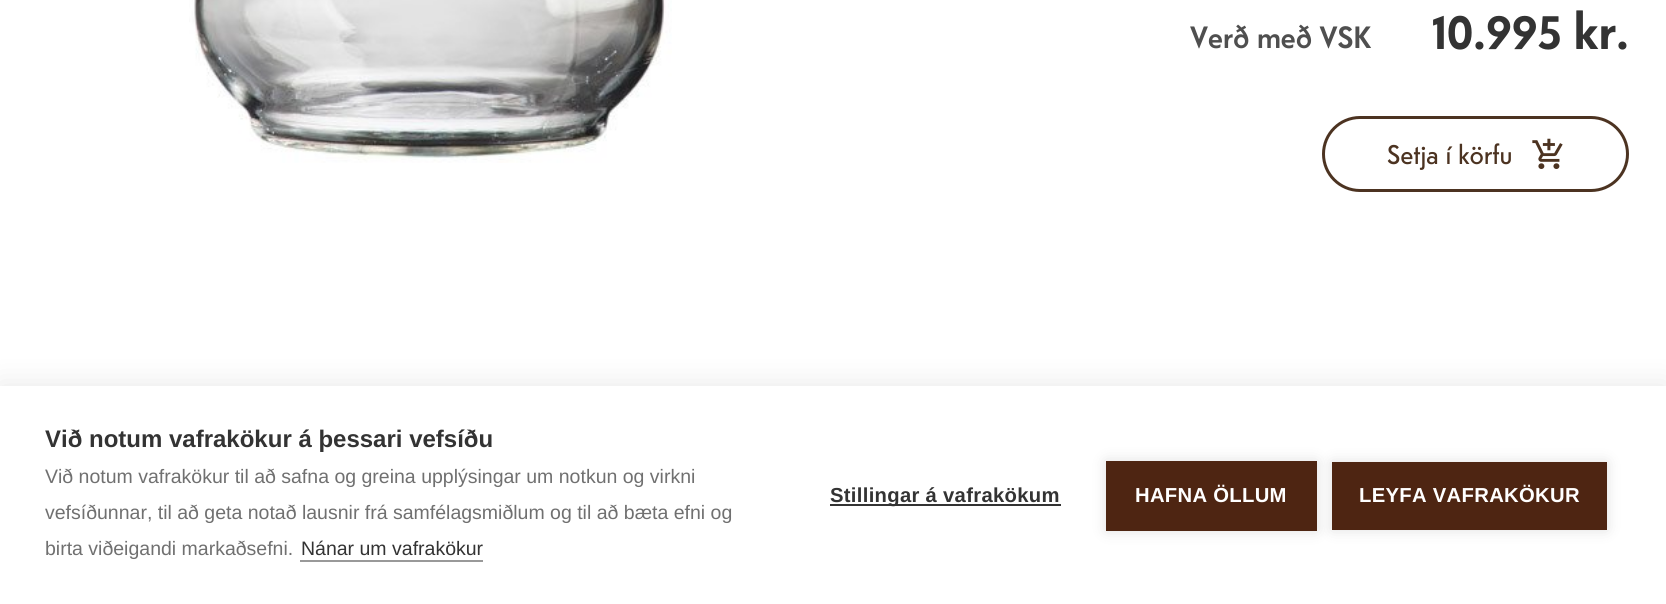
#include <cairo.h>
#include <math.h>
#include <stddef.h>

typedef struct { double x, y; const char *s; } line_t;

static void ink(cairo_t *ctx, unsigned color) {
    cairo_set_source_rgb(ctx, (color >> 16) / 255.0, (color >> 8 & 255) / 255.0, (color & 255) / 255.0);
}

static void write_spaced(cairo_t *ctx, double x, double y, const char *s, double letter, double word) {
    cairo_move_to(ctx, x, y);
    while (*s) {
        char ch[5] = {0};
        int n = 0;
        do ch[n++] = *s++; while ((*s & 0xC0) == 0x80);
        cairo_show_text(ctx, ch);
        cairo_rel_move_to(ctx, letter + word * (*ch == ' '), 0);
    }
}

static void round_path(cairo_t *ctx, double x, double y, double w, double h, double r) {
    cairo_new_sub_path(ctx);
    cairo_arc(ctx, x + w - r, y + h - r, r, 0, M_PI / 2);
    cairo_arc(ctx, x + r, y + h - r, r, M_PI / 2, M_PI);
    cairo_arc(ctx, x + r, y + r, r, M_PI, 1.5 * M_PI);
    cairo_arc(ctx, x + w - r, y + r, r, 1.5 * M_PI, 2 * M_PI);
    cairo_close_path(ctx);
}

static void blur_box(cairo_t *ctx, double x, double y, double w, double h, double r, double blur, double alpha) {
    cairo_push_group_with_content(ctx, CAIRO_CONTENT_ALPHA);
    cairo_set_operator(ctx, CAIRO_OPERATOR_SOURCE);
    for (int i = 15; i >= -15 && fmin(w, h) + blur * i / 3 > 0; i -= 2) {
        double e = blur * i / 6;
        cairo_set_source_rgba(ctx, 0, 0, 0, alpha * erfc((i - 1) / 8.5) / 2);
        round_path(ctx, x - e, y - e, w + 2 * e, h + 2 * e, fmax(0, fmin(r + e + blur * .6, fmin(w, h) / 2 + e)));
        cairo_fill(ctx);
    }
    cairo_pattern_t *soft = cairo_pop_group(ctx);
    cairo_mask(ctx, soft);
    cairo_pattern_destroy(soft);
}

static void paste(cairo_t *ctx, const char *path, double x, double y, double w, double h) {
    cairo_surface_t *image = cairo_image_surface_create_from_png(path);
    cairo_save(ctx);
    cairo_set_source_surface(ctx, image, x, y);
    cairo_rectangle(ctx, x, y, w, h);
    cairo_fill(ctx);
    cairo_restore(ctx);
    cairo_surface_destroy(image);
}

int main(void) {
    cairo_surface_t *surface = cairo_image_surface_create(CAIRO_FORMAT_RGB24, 1666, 604);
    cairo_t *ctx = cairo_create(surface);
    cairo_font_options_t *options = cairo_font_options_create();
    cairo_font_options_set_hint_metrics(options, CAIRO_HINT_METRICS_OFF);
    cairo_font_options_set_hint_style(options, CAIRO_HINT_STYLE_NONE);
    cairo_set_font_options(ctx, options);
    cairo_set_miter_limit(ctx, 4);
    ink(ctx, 0xFFFFFF);
    cairo_paint(ctx);
    paste(ctx, "media/1.png", 189, 0, 483, 163);
    cairo_select_font_face(ctx, "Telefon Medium", CAIRO_FONT_SLANT_NORMAL, CAIRO_FONT_WEIGHT_NORMAL);
    cairo_set_font_size(ctx, 30.75);
    ink(ctx, 0x4F4F4F);
    cairo_move_to(ctx, 1190, 48);
    cairo_show_text(ctx, "Verð með VSK");
    cairo_select_font_face(ctx, "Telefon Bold", CAIRO_FONT_SLANT_NORMAL, CAIRO_FONT_WEIGHT_BOLD);
    cairo_set_font_size(ctx, 51.5);
    ink(ctx, 0x333333);
    cairo_move_to(ctx, 1432, 49);
    cairo_show_text(ctx, "10.995 kr.");
    round_path(ctx, 1323.5, 117.5, 304, 73, 36.5);
    ink(ctx, 0x4C3321);
    cairo_set_line_width(ctx, 3);
    cairo_stroke(ctx);
    cairo_select_font_face(ctx, "Telefon", CAIRO_FONT_SLANT_NORMAL, CAIRO_FONT_WEIGHT_NORMAL);
    cairo_set_font_size(ctx, 27);
    cairo_move_to(ctx, 1387, 164);
    cairo_show_text(ctx, "Setja í körfu");
    paste(ctx, "media/2.png", 1532, 138, 31, 31);
    ink(ctx, 0x000000);
    blur_box(ctx, 0, 386, 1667, 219, 0, 15, 0.1);
    ink(ctx, 0xFFFFFF);
    cairo_rectangle(ctx, 0, 386, 1666, 218);
    cairo_fill(ctx);
    cairo_select_font_face(ctx, "Liberation Sans", CAIRO_FONT_SLANT_NORMAL, CAIRO_FONT_WEIGHT_BOLD);
    cairo_set_font_size(ctx, 24);
    ink(ctx, 0x333333);
    cairo_move_to(ctx, 45, 447);
    cairo_show_text(ctx, "Við notum vafrakökur á þessari vefsíðu");
    cairo_select_font_face(ctx, "Liberation Sans", CAIRO_FONT_SLANT_NORMAL, CAIRO_FONT_WEIGHT_NORMAL);
    cairo_set_font_size(ctx, 19.5);
    ink(ctx, 0x707070);
    {
        static const line_t items[] = {
            {45, 483, "Við notum vafrakökur til að safna og greina upplýsingar um notkun og virkni"},
            {45, 519, "vefsíðunnar, til að geta notað lausnir frá samfélagsmiðlum og til að bæta efni og"},
            {45, 555, "birta viðeigandi markaðsefni."},
        };
        for (size_t i = 0; i < sizeof items / sizeof *items; i++) {
            cairo_move_to(ctx, items[i].x, items[i].y);
            cairo_show_text(ctx, items[i].s);
        }
    }
    ink(ctx, 0x333333);
    cairo_move_to(ctx, 301, 555);
    cairo_show_text(ctx, "Nánar um vafrakökur");
    ink(ctx, 0x999999);
    cairo_rectangle(ctx, 300, 560, 183, 2);
    cairo_fill(ctx);
    ink(ctx, 0x333333);
    cairo_rectangle(ctx, 830, 504, 231, 2);
    cairo_fill(ctx);
    cairo_select_font_face(ctx, "Liberation Sans", CAIRO_FONT_SLANT_NORMAL, CAIRO_FONT_WEIGHT_BOLD);
    cairo_set_font_size(ctx, 20.25);
    write_spaced(ctx, 830, 502, "Stillingar á vafrakökum", 0.3, 0);
    ink(ctx, 0x000000);
    blur_box(ctx, 1106, 461, 211, 70, 0, 7.5, 0.12);
    ink(ctx, 0x4E2512);
    cairo_rectangle(ctx, 1106, 461, 211, 70);
    cairo_fill(ctx);
    ink(ctx, 0xFFFFFF);
    write_spaced(ctx, 1135, 502, "HAFNA ÖLLUM", 0.3, 0);
    ink(ctx, 0x000000);
    blur_box(ctx, 1332, 462, 275, 68, 0, 7.5, 0.12);
    ink(ctx, 0x4E2512);
    cairo_rectangle(ctx, 1332, 462, 275, 68);
    cairo_fill(ctx);
    ink(ctx, 0xFFFFFF);
    write_spaced(ctx, 1359, 502, "LEYFA VAFRAKÖKUR", 0.3, 0);
    cairo_surface_write_to_png(surface, "image.png");
    cairo_font_options_destroy(options);
    cairo_destroy(ctx);
    cairo_surface_destroy(surface);
    return 0;
}
